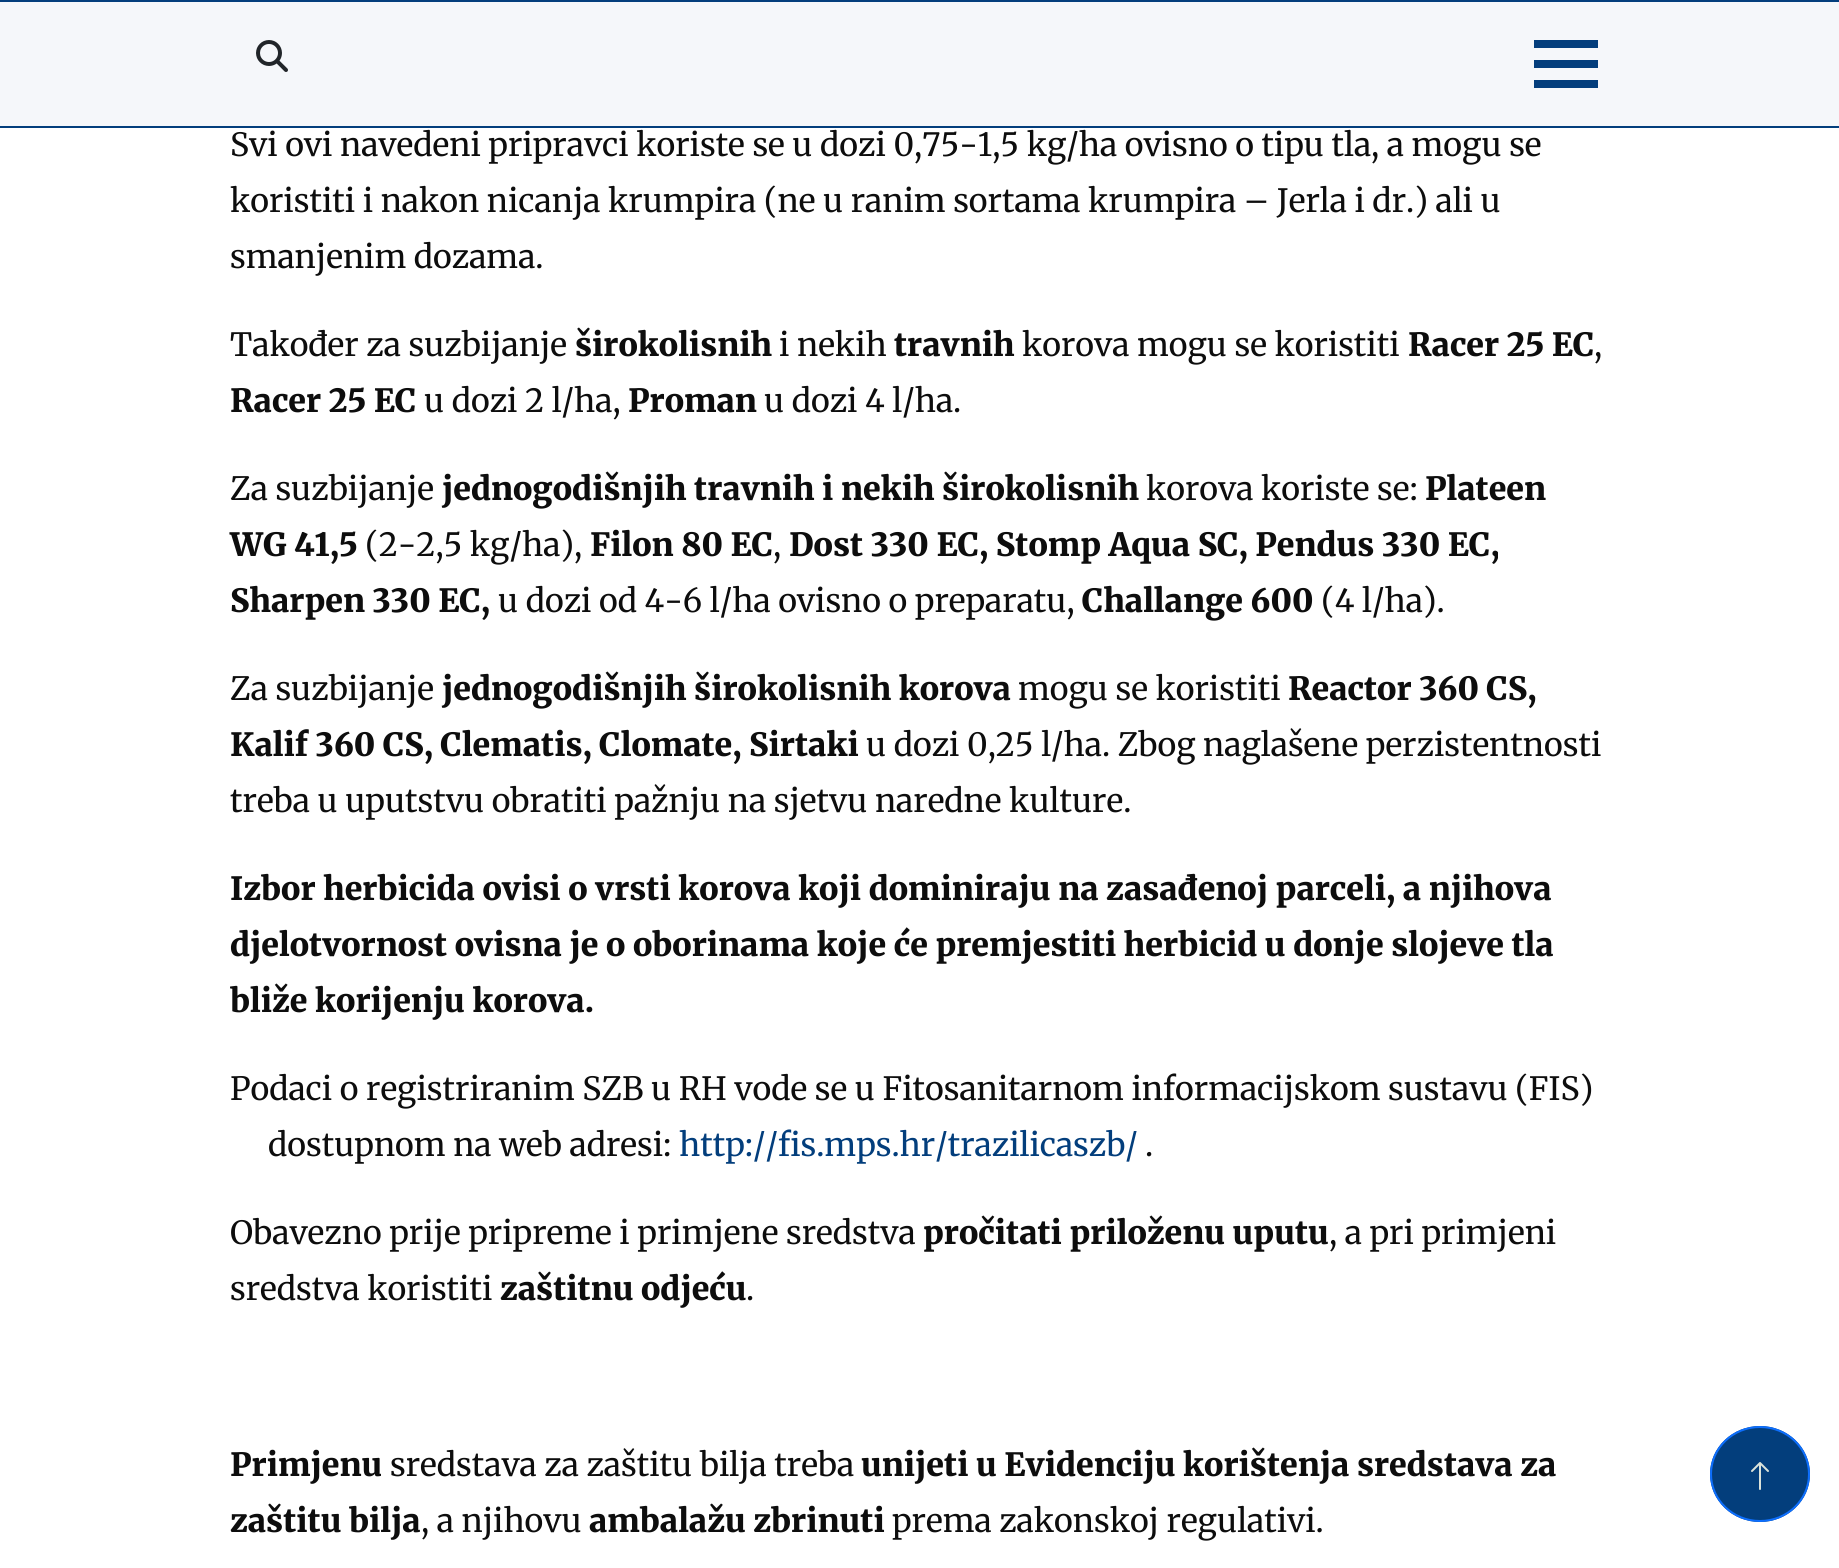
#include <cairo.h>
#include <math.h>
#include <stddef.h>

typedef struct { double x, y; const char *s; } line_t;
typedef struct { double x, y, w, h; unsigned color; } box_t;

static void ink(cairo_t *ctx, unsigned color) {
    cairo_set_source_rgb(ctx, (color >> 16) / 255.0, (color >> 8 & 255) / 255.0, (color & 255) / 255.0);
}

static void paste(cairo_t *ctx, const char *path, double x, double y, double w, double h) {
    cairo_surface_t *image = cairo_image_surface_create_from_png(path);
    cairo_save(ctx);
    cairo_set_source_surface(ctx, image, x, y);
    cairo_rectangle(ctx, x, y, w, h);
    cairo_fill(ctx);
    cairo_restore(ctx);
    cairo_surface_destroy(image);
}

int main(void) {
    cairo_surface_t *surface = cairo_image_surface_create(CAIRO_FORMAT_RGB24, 1839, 1568);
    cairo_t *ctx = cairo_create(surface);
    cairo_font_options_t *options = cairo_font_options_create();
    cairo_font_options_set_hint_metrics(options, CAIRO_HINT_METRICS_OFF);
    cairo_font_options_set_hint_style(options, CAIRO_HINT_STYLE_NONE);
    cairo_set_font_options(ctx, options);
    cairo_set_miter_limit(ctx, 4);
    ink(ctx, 0xFFFFFF);
    cairo_paint(ctx);
    {
        static const box_t items[] = {
            {0, 2, 1839, 124, 0xF5F7FA},
            {0, 0, 1839, 2, 0x033E7C},
            {0, 126, 1839, 2, 0x033E7C},
        };
        for (size_t i = 0; i < sizeof items / sizeof *items; i++) {
            ink(ctx, items[i].color);
            cairo_rectangle(ctx, items[i].x, items[i].y, items[i].w, items[i].h);
            cairo_fill(ctx);
        }
    }
    paste(ctx, "media/1.png", 256, 40, 32, 32);
    {
        static const box_t items[] = {
            {1534, 60, 64, 8, 0x033E7C},
            {1534, 40, 64, 8, 0x033E7C},
            {1534, 80, 64, 8, 0x033E7C},
        };
        for (size_t i = 0; i < sizeof items / sizeof *items; i++) {
            ink(ctx, items[i].color);
            cairo_rectangle(ctx, items[i].x, items[i].y, items[i].w, items[i].h);
            cairo_fill(ctx);
        }
    }
    cairo_select_font_face(ctx, "Merriweather", CAIRO_FONT_SLANT_NORMAL, CAIRO_FONT_WEIGHT_NORMAL);
    cairo_set_font_size(ctx, 32);
    ink(ctx, 0x0D0D0D);
    {
        static const line_t items[] = {
            {230, 156, "Svi ovi navedeni pripravci koriste se u dozi 0,75-1,5 kg/ha ovisno o tipu tla, a mogu se"},
            {230, 212, "koristiti i nakon nicanja krumpira (ne u ranim sortama krumpira – Jerla i dr.) ali u"},
            {230, 268, "smanjenim dozama."},
            {230, 356, "Također za suzbijanje"},
        };
        for (size_t i = 0; i < sizeof items / sizeof *items; i++) {
            cairo_move_to(ctx, items[i].x, items[i].y);
            cairo_show_text(ctx, items[i].s);
        }
    }
    cairo_select_font_face(ctx, "Merriweather Black", CAIRO_FONT_SLANT_NORMAL, CAIRO_FONT_WEIGHT_NORMAL);
    cairo_move_to(ctx, 575, 356);
    cairo_show_text(ctx, "širokolisnih");
    cairo_select_font_face(ctx, "Merriweather", CAIRO_FONT_SLANT_NORMAL, CAIRO_FONT_WEIGHT_NORMAL);
    cairo_move_to(ctx, 779, 356);
    cairo_show_text(ctx, "i nekih");
    cairo_select_font_face(ctx, "Merriweather Black", CAIRO_FONT_SLANT_NORMAL, CAIRO_FONT_WEIGHT_NORMAL);
    cairo_move_to(ctx, 894, 356);
    cairo_show_text(ctx, "travnih");
    cairo_select_font_face(ctx, "Merriweather", CAIRO_FONT_SLANT_NORMAL, CAIRO_FONT_WEIGHT_NORMAL);
    cairo_move_to(ctx, 1022, 356);
    cairo_show_text(ctx, "korova mogu se koristiti");
    cairo_select_font_face(ctx, "Merriweather Black", CAIRO_FONT_SLANT_NORMAL, CAIRO_FONT_WEIGHT_NORMAL);
    cairo_move_to(ctx, 1408, 356);
    cairo_show_text(ctx, "Racer 25 EC");
    cairo_select_font_face(ctx, "Merriweather", CAIRO_FONT_SLANT_NORMAL, CAIRO_FONT_WEIGHT_NORMAL);
    cairo_move_to(ctx, 1594, 356);
    cairo_show_text(ctx, ",");
    cairo_select_font_face(ctx, "Merriweather Black", CAIRO_FONT_SLANT_NORMAL, CAIRO_FONT_WEIGHT_NORMAL);
    cairo_move_to(ctx, 230, 412);
    cairo_show_text(ctx, "Racer 25 EC");
    cairo_select_font_face(ctx, "Merriweather", CAIRO_FONT_SLANT_NORMAL, CAIRO_FONT_WEIGHT_NORMAL);
    cairo_move_to(ctx, 424, 412);
    cairo_show_text(ctx, "u dozi 2 l/ha,");
    cairo_select_font_face(ctx, "Merriweather Black", CAIRO_FONT_SLANT_NORMAL, CAIRO_FONT_WEIGHT_NORMAL);
    cairo_move_to(ctx, 628, 412);
    cairo_show_text(ctx, "Proman");
    cairo_select_font_face(ctx, "Merriweather", CAIRO_FONT_SLANT_NORMAL, CAIRO_FONT_WEIGHT_NORMAL);
    cairo_move_to(ctx, 764, 412);
    cairo_show_text(ctx, "u dozi 4 l/ha.");
    cairo_move_to(ctx, 230, 500);
    cairo_show_text(ctx, "Za suzbijanje");
    cairo_select_font_face(ctx, "Merriweather Black", CAIRO_FONT_SLANT_NORMAL, CAIRO_FONT_WEIGHT_NORMAL);
    cairo_move_to(ctx, 442, 500);
    cairo_show_text(ctx, "jednogodišnjih travnih i nekih širokolisnih");
    cairo_select_font_face(ctx, "Merriweather", CAIRO_FONT_SLANT_NORMAL, CAIRO_FONT_WEIGHT_NORMAL);
    cairo_move_to(ctx, 1146, 500);
    cairo_show_text(ctx, "korova koriste se:");
    cairo_select_font_face(ctx, "Merriweather Black", CAIRO_FONT_SLANT_NORMAL, CAIRO_FONT_WEIGHT_NORMAL);
    cairo_move_to(ctx, 1425, 500);
    cairo_show_text(ctx, "Plateen");
    cairo_move_to(ctx, 230, 556);
    cairo_show_text(ctx, "WG 41,5");
    cairo_select_font_face(ctx, "Merriweather", CAIRO_FONT_SLANT_NORMAL, CAIRO_FONT_WEIGHT_NORMAL);
    cairo_move_to(ctx, 365, 556);
    cairo_show_text(ctx, "(2-2,5 kg/ha),");
    cairo_select_font_face(ctx, "Merriweather Black", CAIRO_FONT_SLANT_NORMAL, CAIRO_FONT_WEIGHT_NORMAL);
    cairo_move_to(ctx, 590, 556);
    cairo_show_text(ctx, "Filon 80 EC");
    cairo_select_font_face(ctx, "Merriweather", CAIRO_FONT_SLANT_NORMAL, CAIRO_FONT_WEIGHT_NORMAL);
    cairo_move_to(ctx, 773, 556);
    cairo_show_text(ctx, ",");
    cairo_select_font_face(ctx, "Merriweather Black", CAIRO_FONT_SLANT_NORMAL, CAIRO_FONT_WEIGHT_NORMAL);
    cairo_move_to(ctx, 789, 556);
    cairo_show_text(ctx, "Dost 330 EC, Stomp Aqua SC, Pendus 330 EC,");
    cairo_move_to(ctx, 230, 612);
    cairo_show_text(ctx, "Sharpen 330 EC,");
    cairo_select_font_face(ctx, "Merriweather", CAIRO_FONT_SLANT_NORMAL, CAIRO_FONT_WEIGHT_NORMAL);
    cairo_move_to(ctx, 498, 612);
    cairo_show_text(ctx, "u dozi od 4-6 l/ha ovisno o preparatu,");
    cairo_select_font_face(ctx, "Merriweather Black", CAIRO_FONT_SLANT_NORMAL, CAIRO_FONT_WEIGHT_NORMAL);
    cairo_move_to(ctx, 1082, 612);
    cairo_show_text(ctx, "Challange 600");
    cairo_select_font_face(ctx, "Merriweather", CAIRO_FONT_SLANT_NORMAL, CAIRO_FONT_WEIGHT_NORMAL);
    cairo_move_to(ctx, 1321, 612);
    cairo_show_text(ctx, "(4 l/ha).");
    cairo_move_to(ctx, 230, 700);
    cairo_show_text(ctx, "Za suzbijanje");
    cairo_select_font_face(ctx, "Merriweather Black", CAIRO_FONT_SLANT_NORMAL, CAIRO_FONT_WEIGHT_NORMAL);
    cairo_move_to(ctx, 442, 700);
    cairo_show_text(ctx, "jednogodišnjih širokolisnih korova");
    cairo_select_font_face(ctx, "Merriweather", CAIRO_FONT_SLANT_NORMAL, CAIRO_FONT_WEIGHT_NORMAL);
    cairo_move_to(ctx, 1018, 700);
    cairo_show_text(ctx, "mogu se koristiti");
    cairo_select_font_face(ctx, "Merriweather Black", CAIRO_FONT_SLANT_NORMAL, CAIRO_FONT_WEIGHT_NORMAL);
    cairo_move_to(ctx, 1288, 700);
    cairo_show_text(ctx, "Reactor 360 CS,");
    cairo_move_to(ctx, 230, 756);
    cairo_show_text(ctx, "Kalif 360 CS, Clematis, Clomate, Sirtaki");
    cairo_select_font_face(ctx, "Merriweather", CAIRO_FONT_SLANT_NORMAL, CAIRO_FONT_WEIGHT_NORMAL);
    cairo_move_to(ctx, 866, 756);
    cairo_show_text(ctx, "u dozi 0,25 l/ha. Zbog naglašene perzistentnosti");
    cairo_move_to(ctx, 230, 812);
    cairo_show_text(ctx, "treba u uputstvu obratiti pažnju na sjetvu naredne kulture.");
    cairo_select_font_face(ctx, "Merriweather Black", CAIRO_FONT_SLANT_NORMAL, CAIRO_FONT_WEIGHT_NORMAL);
    {
        static const line_t items[] = {
            {230, 900, "Izbor herbicida ovisi o vrsti korova koji dominiraju na zasađenoj parceli, a njihova"},
            {230, 956, "djelotvornost ovisna je o oborinama koje će premjestiti herbicid u donje slojeve tla"},
            {230, 1012, "bliže korijenju korova."},
        };
        for (size_t i = 0; i < sizeof items / sizeof *items; i++) {
            cairo_move_to(ctx, items[i].x, items[i].y);
            cairo_show_text(ctx, items[i].s);
        }
    }
    cairo_select_font_face(ctx, "Merriweather", CAIRO_FONT_SLANT_NORMAL, CAIRO_FONT_WEIGHT_NORMAL);
    cairo_move_to(ctx, 230, 1100);
    cairo_show_text(ctx, "Podaci o registriranim SZB u RH vode se u Fitosanitarnom informacijskom sustavu (FIS)");
    cairo_move_to(ctx, 268, 1156);
    cairo_show_text(ctx, "dostupnom na web adresi:");
    ink(ctx, 0x033E7C);
    cairo_move_to(ctx, 679, 1156);
    cairo_show_text(ctx, "http://fis.mps.hr/trazilicaszb/");
    ink(ctx, 0x0D0D0D);
    cairo_move_to(ctx, 1145, 1156);
    cairo_show_text(ctx, ".");
    cairo_move_to(ctx, 230, 1244);
    cairo_show_text(ctx, "Obavezno prije pripreme i primjene sredstva");
    cairo_select_font_face(ctx, "Merriweather Black", CAIRO_FONT_SLANT_NORMAL, CAIRO_FONT_WEIGHT_NORMAL);
    cairo_move_to(ctx, 923, 1244);
    cairo_show_text(ctx, "pročitati priloženu uputu");
    cairo_select_font_face(ctx, "Merriweather", CAIRO_FONT_SLANT_NORMAL, CAIRO_FONT_WEIGHT_NORMAL);
    cairo_move_to(ctx, 1329, 1244);
    cairo_show_text(ctx, ", a pri primjeni");
    cairo_move_to(ctx, 230, 1300);
    cairo_show_text(ctx, "sredstva koristiti");
    cairo_select_font_face(ctx, "Merriweather Black", CAIRO_FONT_SLANT_NORMAL, CAIRO_FONT_WEIGHT_NORMAL);
    cairo_move_to(ctx, 500, 1300);
    cairo_show_text(ctx, "zaštitnu odjeću");
    cairo_select_font_face(ctx, "Merriweather", CAIRO_FONT_SLANT_NORMAL, CAIRO_FONT_WEIGHT_NORMAL);
    cairo_move_to(ctx, 746, 1300);
    cairo_show_text(ctx, ".");
    cairo_select_font_face(ctx, "Merriweather Black", CAIRO_FONT_SLANT_NORMAL, CAIRO_FONT_WEIGHT_NORMAL);
    cairo_move_to(ctx, 230, 1476);
    cairo_show_text(ctx, "Primjenu");
    cairo_select_font_face(ctx, "Merriweather", CAIRO_FONT_SLANT_NORMAL, CAIRO_FONT_WEIGHT_NORMAL);
    cairo_move_to(ctx, 390, 1476);
    cairo_show_text(ctx, "sredstava za zaštitu bilja treba");
    cairo_select_font_face(ctx, "Merriweather Black", CAIRO_FONT_SLANT_NORMAL, CAIRO_FONT_WEIGHT_NORMAL);
    cairo_move_to(ctx, 861, 1476);
    cairo_show_text(ctx, "unijeti u Evidenciju korištenja sredstava za");
    cairo_move_to(ctx, 230, 1532);
    cairo_show_text(ctx, "zaštitu bilja");
    cairo_select_font_face(ctx, "Merriweather", CAIRO_FONT_SLANT_NORMAL, CAIRO_FONT_WEIGHT_NORMAL);
    cairo_move_to(ctx, 421, 1532);
    cairo_show_text(ctx, ", a njihovu");
    cairo_select_font_face(ctx, "Merriweather Black", CAIRO_FONT_SLANT_NORMAL, CAIRO_FONT_WEIGHT_NORMAL);
    cairo_move_to(ctx, 589, 1532);
    cairo_show_text(ctx, "ambalažu zbrinuti");
    cairo_select_font_face(ctx, "Merriweather", CAIRO_FONT_SLANT_NORMAL, CAIRO_FONT_WEIGHT_NORMAL);
    cairo_move_to(ctx, 892, 1532);
    cairo_show_text(ctx, "prema zakonskoj regulativi.");
    ink(ctx, 0x033E7C);
    cairo_new_path(ctx);
    cairo_move_to(ctx, 1760, 1426);
    cairo_curve_to(ctx, 1787.5, 1426, 1810, 1447.5, 1810, 1474);
    cairo_curve_to(ctx, 1810, 1500.5, 1787.5, 1522, 1760, 1522);
    cairo_curve_to(ctx, 1732.5, 1522, 1710, 1500.5, 1710, 1474);
    cairo_curve_to(ctx, 1710, 1447.5, 1732.5, 1426, 1760, 1426);
    cairo_close_path(ctx);
    cairo_fill(ctx);
    cairo_new_path(ctx);
    cairo_move_to(ctx, 1760, 1427);
    cairo_curve_to(ctx, 1787, 1427, 1809, 1448, 1809, 1474);
    cairo_curve_to(ctx, 1809, 1500, 1787, 1521, 1760, 1521);
    cairo_curve_to(ctx, 1733, 1521, 1711, 1500, 1711, 1474);
    cairo_curve_to(ctx, 1711, 1448, 1733, 1427, 1760, 1427);
    cairo_close_path(ctx);
    ink(ctx, 0x0D6EFD);
    cairo_stroke(ctx);
    paste(ctx, "media/2.png", 1751, 1462, 18, 28);
    cairo_surface_write_to_png(surface, "image.png");
    cairo_font_options_destroy(options);
    cairo_destroy(ctx);
    cairo_surface_destroy(surface);
    return 0;
}
